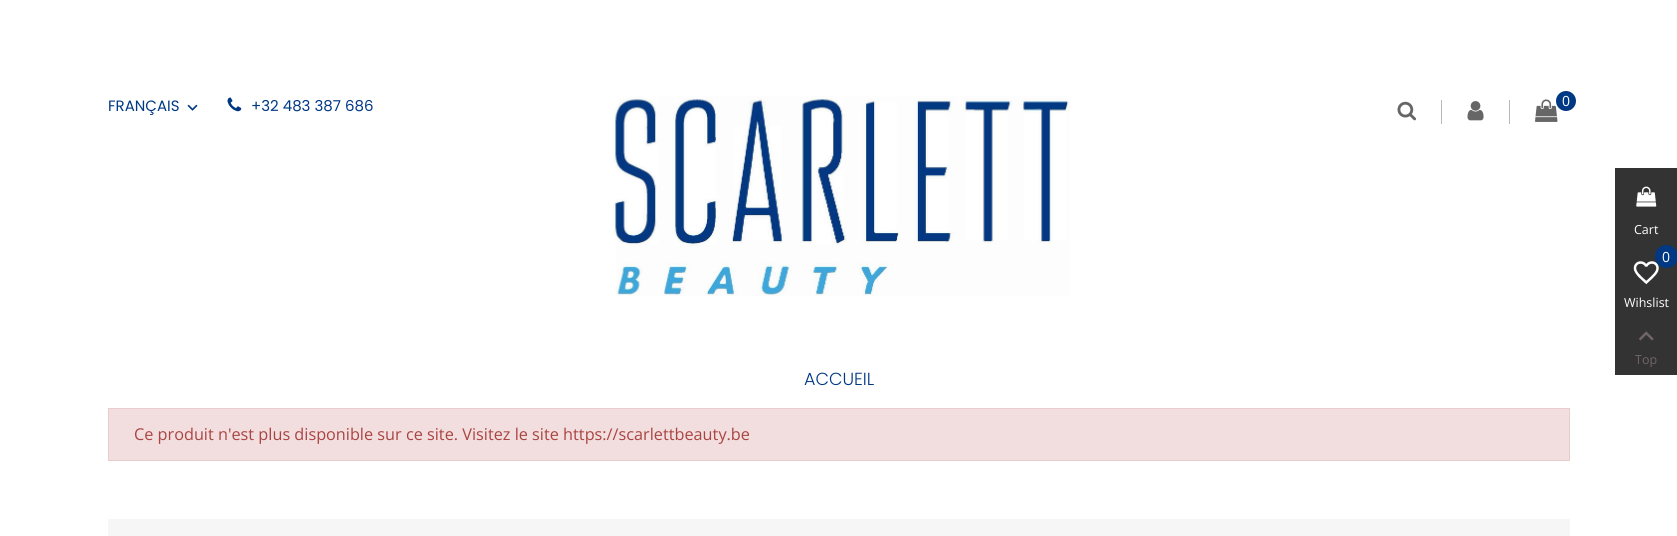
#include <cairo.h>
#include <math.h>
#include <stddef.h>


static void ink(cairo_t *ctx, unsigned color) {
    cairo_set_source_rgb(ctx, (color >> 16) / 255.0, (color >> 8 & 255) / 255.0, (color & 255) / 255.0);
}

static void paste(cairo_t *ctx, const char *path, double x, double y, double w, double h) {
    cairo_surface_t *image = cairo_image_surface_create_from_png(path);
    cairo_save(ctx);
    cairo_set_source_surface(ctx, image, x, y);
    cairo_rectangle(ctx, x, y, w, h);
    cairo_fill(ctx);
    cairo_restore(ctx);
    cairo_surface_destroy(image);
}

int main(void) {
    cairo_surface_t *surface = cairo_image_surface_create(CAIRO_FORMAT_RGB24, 1677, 536);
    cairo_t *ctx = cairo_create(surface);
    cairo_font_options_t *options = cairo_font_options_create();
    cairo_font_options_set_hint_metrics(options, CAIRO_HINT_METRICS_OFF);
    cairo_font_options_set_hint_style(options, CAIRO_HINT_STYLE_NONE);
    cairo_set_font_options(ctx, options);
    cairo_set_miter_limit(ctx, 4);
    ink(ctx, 0xFFFFFF);
    cairo_paint(ctx);
    cairo_select_font_face(ctx, "Poppins", CAIRO_FONT_SLANT_NORMAL, CAIRO_FONT_WEIGHT_NORMAL);
    cairo_set_font_size(ctx, 15);
    ink(ctx, 0x003884);
    cairo_move_to(ctx, 108, 111);
    cairo_show_text(ctx, "FRANÇAIS");
    paste(ctx, "media/1.png", 187, 104, 11, 7);
    paste(ctx, "media/2.png", 227, 97, 15, 15);
    cairo_move_to(ctx, 251, 111);
    cairo_show_text(ctx, "+32 483 387 686");
    paste(ctx, "media/3.png", 612, 96, 458, 200);
    paste(ctx, "media/4.png", 1397, 101, 19, 20);
    ink(ctx, 0xB8B8B8);
    cairo_rectangle(ctx, 1441, 100, 1, 24);
    cairo_fill(ctx);
    paste(ctx, "media/5.png", 1467, 101, 17, 20);
    cairo_rectangle(ctx, 1509, 100, 1, 24);
    cairo_fill(ctx);
    paste(ctx, "media/6.png", 1535, 99, 23, 23);
    ink(ctx, 0x003884);
    cairo_arc(ctx, 1566, 101, 10, 0, 2 * M_PI);
    cairo_fill(ctx);
    cairo_select_font_face(ctx, "Open Sans", CAIRO_FONT_SLANT_NORMAL, CAIRO_FONT_WEIGHT_NORMAL);
    cairo_set_font_size(ctx, 14);
    ink(ctx, 0xFFFFFF);
    cairo_move_to(ctx, 1562, 106);
    cairo_show_text(ctx, "0");
    ink(ctx, 0x333333);
    cairo_rectangle(ctx, 1615, 168, 62, 207);
    cairo_fill(ctx);
    paste(ctx, "media/7.png", 1636, 186, 21, 21);
    cairo_set_font_size(ctx, 12.5);
    ink(ctx, 0xFFFFFF);
    cairo_move_to(ctx, 1634, 234);
    cairo_show_text(ctx, "Cart");
    paste(ctx, "media/8.png", 1633, 261, 26, 24);
    ink(ctx, 0x003884);
    cairo_arc(ctx, 1666.5, 256.5, 11.5, 0, 2 * M_PI);
    cairo_fill(ctx);
    cairo_set_font_size(ctx, 14);
    ink(ctx, 0xFFFFFF);
    cairo_move_to(ctx, 1662, 262);
    cairo_show_text(ctx, "0");
    cairo_set_font_size(ctx, 12.5);
    cairo_move_to(ctx, 1624, 307);
    cairo_show_text(ctx, "Wihslist");
    paste(ctx, "media/9.png", 1639, 331, 15, 10);
    ink(ctx, 0x706565);
    cairo_move_to(ctx, 1635, 364);
    cairo_show_text(ctx, "Top");
    cairo_select_font_face(ctx, "Poppins Light", CAIRO_FONT_SLANT_NORMAL, CAIRO_FONT_WEIGHT_NORMAL);
    cairo_set_font_size(ctx, 17.5);
    ink(ctx, 0x003884);
    cairo_move_to(ctx, 804, 385);
    cairo_show_text(ctx, "ACCUEIL");
    ink(ctx, 0xF2DEDE);
    cairo_rectangle(ctx, 108.5, 408.5, 1461, 52);
    cairo_fill_preserve(ctx);
    ink(ctx, 0xEBCCCC);
    cairo_set_line_width(ctx, 1);
    cairo_stroke(ctx);
    cairo_select_font_face(ctx, "Open Sans", CAIRO_FONT_SLANT_NORMAL, CAIRO_FONT_WEIGHT_NORMAL);
    cairo_set_font_size(ctx, 16.25);
    ink(ctx, 0xA94442);
    cairo_move_to(ctx, 134, 440);
    cairo_show_text(ctx, "Ce produit n'est plus disponible sur ce site. Visitez le site https://scarlettbeauty.be");
    ink(ctx, 0xF6F6F6);
    cairo_rectangle(ctx, 108, 519, 1462, 17);
    cairo_fill(ctx);
    cairo_surface_write_to_png(surface, "image.png");
    cairo_font_options_destroy(options);
    cairo_destroy(ctx);
    cairo_surface_destroy(surface);
    return 0;
}
